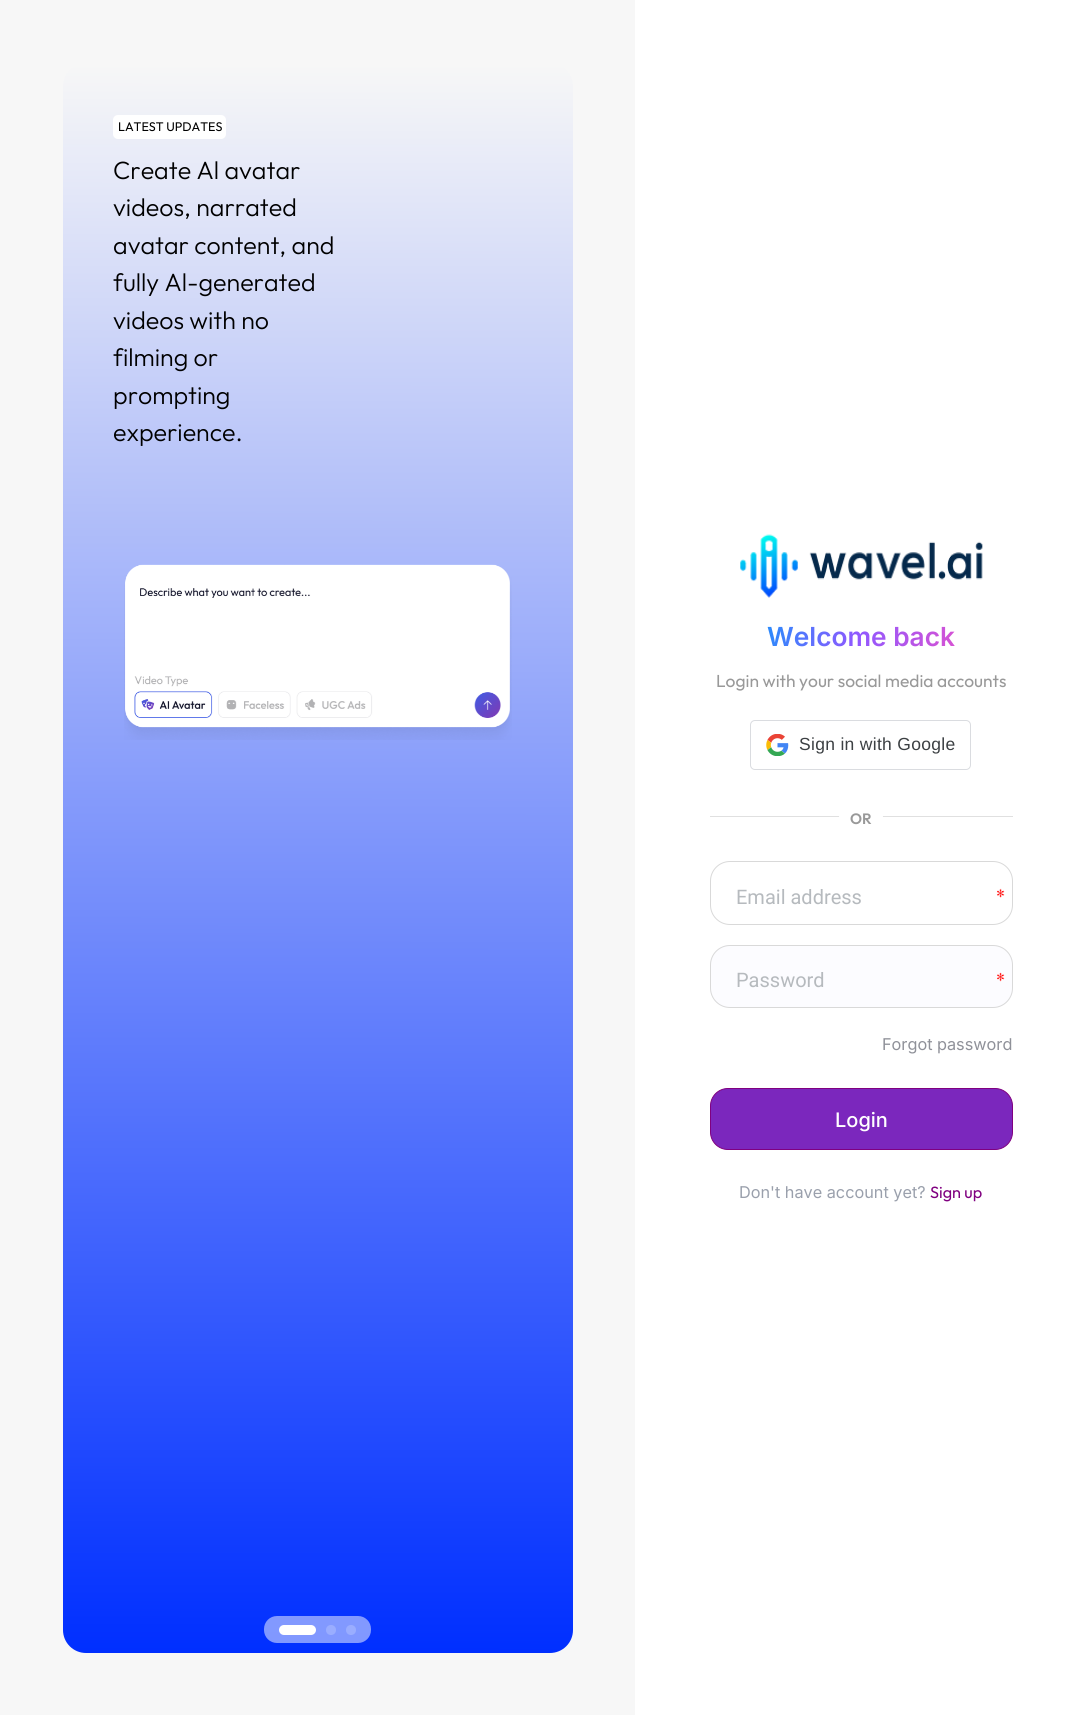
#include <cairo.h>
#include <math.h>
#include <stddef.h>

typedef struct { double x, y; const char *s; } line_t;

static void ink(cairo_t *ctx, unsigned color) {
    cairo_set_source_rgb(ctx, (color >> 16) / 255.0, (color >> 8 & 255) / 255.0, (color & 255) / 255.0);
}

static void write_spaced(cairo_t *ctx, double x, double y, const char *s, double letter, double word) {
    cairo_move_to(ctx, x, y);
    while (*s) {
        char ch[5] = {0};
        int n = 0;
        do ch[n++] = *s++; while ((*s & 0xC0) == 0x80);
        cairo_show_text(ctx, ch);
        cairo_rel_move_to(ctx, letter + word * (*ch == ' '), 0);
    }
}

static void round_path(cairo_t *ctx, double x, double y, double w, double h, double r) {
    cairo_new_sub_path(ctx);
    cairo_arc(ctx, x + w - r, y + h - r, r, 0, M_PI / 2);
    cairo_arc(ctx, x + r, y + h - r, r, M_PI / 2, M_PI);
    cairo_arc(ctx, x + r, y + r, r, M_PI, 1.5 * M_PI);
    cairo_arc(ctx, x + w - r, y + r, r, 1.5 * M_PI, 2 * M_PI);
    cairo_close_path(ctx);
}

static void paste(cairo_t *ctx, const char *path, double x, double y, double w, double h) {
    cairo_surface_t *image = cairo_image_surface_create_from_png(path);
    cairo_save(ctx);
    cairo_set_source_surface(ctx, image, x, y);
    cairo_rectangle(ctx, x, y, w, h);
    cairo_fill(ctx);
    cairo_restore(ctx);
    cairo_surface_destroy(image);
}

int main(void) {
    cairo_surface_t *surface = cairo_image_surface_create(CAIRO_FORMAT_RGB24, 1087, 1715);
    cairo_t *ctx = cairo_create(surface);
    cairo_font_options_t *options = cairo_font_options_create();
    cairo_font_options_set_hint_metrics(options, CAIRO_HINT_METRICS_OFF);
    cairo_font_options_set_hint_style(options, CAIRO_HINT_STYLE_NONE);
    cairo_set_font_options(ctx, options);
    cairo_set_miter_limit(ctx, 4);
    cairo_pattern_t *gradient;
    ink(ctx, 0xF7F7F7);
    cairo_paint(ctx);
    gradient = cairo_pattern_create_linear(318, 63, 317, 1653);
    cairo_pattern_add_color_stop_rgba(gradient, 0, 0.969, 0.969, 0.969, 1);
    cairo_pattern_add_color_stop_rgba(gradient, 1, 0, 0.184, 1, 1);
    cairo_set_source(ctx, gradient);
    cairo_pattern_destroy(gradient);
    round_path(ctx, 63, 63, 510, 1590, 23);
    cairo_fill(ctx);
    ink(ctx, 0xFFFFFF);
    round_path(ctx, 113, 115, 113, 24, 5);
    cairo_fill(ctx);
    cairo_select_font_face(ctx, "Outfit", CAIRO_FONT_SLANT_NORMAL, CAIRO_FONT_WEIGHT_NORMAL);
    cairo_set_font_size(ctx, 12.5);
    ink(ctx, 0x000000);
    cairo_move_to(ctx, 118, 131);
    cairo_show_text(ctx, "LATEST UPDATES");
    cairo_select_font_face(ctx, "Outfit Light", CAIRO_FONT_SLANT_NORMAL, CAIRO_FONT_WEIGHT_NORMAL);
    cairo_set_font_size(ctx, 25);
    {
        static const line_t items[] = {
            {113, 179, "Create Al avatar"},
            {113, 216, "videos, narrated"},
            {113, 254, "avatar content, and"},
            {113, 291, "fully Al-generated"},
            {113, 329, "videos with no"},
            {113, 366, "filming or"},
            {113, 404, "prompting"},
            {113, 441, "experience."},
        };
        for (size_t i = 0; i < sizeof items / sizeof *items; i++) {
            cairo_move_to(ctx, items[i].x, items[i].y);
            cairo_show_text(ctx, items[i].s);
        }
    }
    paste(ctx, "media/1.png", 124, 564, 388, 176);
    cairo_set_source_rgba(ctx, 1, 1, 1, 0.5);
    round_path(ctx, 264, 1616, 107, 27, 13);
    cairo_fill(ctx);
    ink(ctx, 0xFFFFFF);
    round_path(ctx, 279, 1625, 37, 10, 5);
    cairo_fill(ctx);
    ink(ctx, 0x9AADFF);
    cairo_arc(ctx, 331, 1630, 5, 0, 2 * M_PI);
    cairo_fill(ctx);
    cairo_arc(ctx, 351, 1630, 5, 0, 2 * M_PI);
    cairo_fill(ctx);
    ink(ctx, 0xFFFFFF);
    cairo_rectangle(ctx, 635, 0, 452, 1715);
    cairo_fill(ctx);
    paste(ctx, "media/2.png", 740, 534, 243, 64);
    cairo_select_font_face(ctx, "Inter SemiBold", CAIRO_FONT_SLANT_NORMAL, CAIRO_FONT_WEIGHT_NORMAL);
    cairo_set_font_size(ctx, 26.25);
    gradient = cairo_pattern_create_linear(713, 606, 1009, 668);
    cairo_pattern_add_color_stop_rgba(gradient, 0.06, 0, 0.627, 0.98, 1);
    cairo_pattern_add_color_stop_rgba(gradient, 0.49, 0.565, 0.345, 1, 1);
    cairo_pattern_add_color_stop_rgba(gradient, 0.91, 0.922, 0.318, 0.78, 1);
    cairo_set_source(ctx, gradient);
    cairo_pattern_destroy(gradient);
    cairo_move_to(ctx, 767, 646);
    cairo_show_text(ctx, "Welcome back");
    cairo_select_font_face(ctx, "Outfit", CAIRO_FONT_SLANT_NORMAL, CAIRO_FONT_WEIGHT_NORMAL);
    cairo_set_font_size(ctx, 17.4);
    ink(ctx, 0x999999);
    cairo_move_to(ctx, 716, 687);
    cairo_show_text(ctx, "Login with your social media accounts");
    round_path(ctx, 750.5, 720.5, 220, 49, 4.5);
    ink(ctx, 0xDADCE0);
    cairo_set_line_width(ctx, 1);
    cairo_stroke(ctx);
    paste(ctx, "media/3.png", 766, 734, 23, 22);
    cairo_select_font_face(ctx, "Liberation Sans", CAIRO_FONT_SLANT_NORMAL, CAIRO_FONT_WEIGHT_NORMAL);
    cairo_set_font_size(ctx, 17.5);
    ink(ctx, 0x3C4043);
    write_spaced(ctx, 799, 750, "Sign in with Google", 0.3, 0);
    ink(ctx, 0xE0E0E0);
    cairo_rectangle(ctx, 710, 816, 303, 1);
    cairo_fill(ctx);
    ink(ctx, 0xFFFFFF);
    cairo_arc(ctx, 861, 818, 22, 0, 2 * M_PI);
    cairo_fill(ctx);
    cairo_select_font_face(ctx, "Outfit SemiBold", CAIRO_FONT_SLANT_NORMAL, CAIRO_FONT_WEIGHT_NORMAL);
    cairo_set_font_size(ctx, 15);
    ink(ctx, 0x999999);
    cairo_move_to(ctx, 850, 824);
    cairo_show_text(ctx, "OR");
    paste(ctx, "media/4.png", 997, 888, 8, 10);
    round_path(ctx, 710.5, 861.5, 302, 63, 19.5);
    ink(ctx, 0xD9D9D9);
    cairo_stroke(ctx);
    cairo_select_font_face(ctx, "Roboto", CAIRO_FONT_SLANT_NORMAL, CAIRO_FONT_WEIGHT_NORMAL);
    cairo_set_font_size(ctx, 20);
    ink(ctx, 0xB6BABE);
    cairo_move_to(ctx, 736, 904);
    cairo_show_text(ctx, "Email address");
    ink(ctx, 0xFCFCFF);
    round_path(ctx, 710, 945, 303, 63, 20);
    cairo_fill(ctx);
    paste(ctx, "media/5.png", 997, 972, 8, 10);
    round_path(ctx, 710.5, 945.5, 302, 62, 19.5);
    ink(ctx, 0xD9D9D9);
    cairo_stroke(ctx);
    ink(ctx, 0xB6BABE);
    cairo_move_to(ctx, 736, 987);
    cairo_show_text(ctx, "Password");
    cairo_select_font_face(ctx, "Inter", CAIRO_FONT_SLANT_NORMAL, CAIRO_FONT_WEIGHT_NORMAL);
    cairo_set_font_size(ctx, 16.25);
    ink(ctx, 0x8F9199);
    cairo_move_to(ctx, 882, 1050);
    cairo_show_text(ctx, "Forgot password");
    ink(ctx, 0x7B27BD);
    round_path(ctx, 710.5, 1088.5, 302, 61, 17.5);
    cairo_fill_preserve(ctx);
    ink(ctx, 0x800080);
    cairo_stroke(ctx);
    cairo_select_font_face(ctx, "Inter Medium", CAIRO_FONT_SLANT_NORMAL, CAIRO_FONT_WEIGHT_NORMAL);
    cairo_set_font_size(ctx, 20);
    ink(ctx, 0xFFFFFF);
    cairo_move_to(ctx, 835, 1127);
    cairo_show_text(ctx, "Login");
    cairo_select_font_face(ctx, "Inter", CAIRO_FONT_SLANT_NORMAL, CAIRO_FONT_WEIGHT_NORMAL);
    cairo_set_font_size(ctx, 16.25);
    ink(ctx, 0x9AA0AC);
    cairo_move_to(ctx, 739, 1198);
    cairo_show_text(ctx, "Don't have account yet?");
    cairo_select_font_face(ctx, "Outfit", CAIRO_FONT_SLANT_NORMAL, CAIRO_FONT_WEIGHT_NORMAL);
    ink(ctx, 0x800080);
    cairo_move_to(ctx, 930, 1198);
    cairo_show_text(ctx, "Sign up");
    cairo_surface_write_to_png(surface, "image.png");
    cairo_font_options_destroy(options);
    cairo_destroy(ctx);
    cairo_surface_destroy(surface);
    return 0;
}
